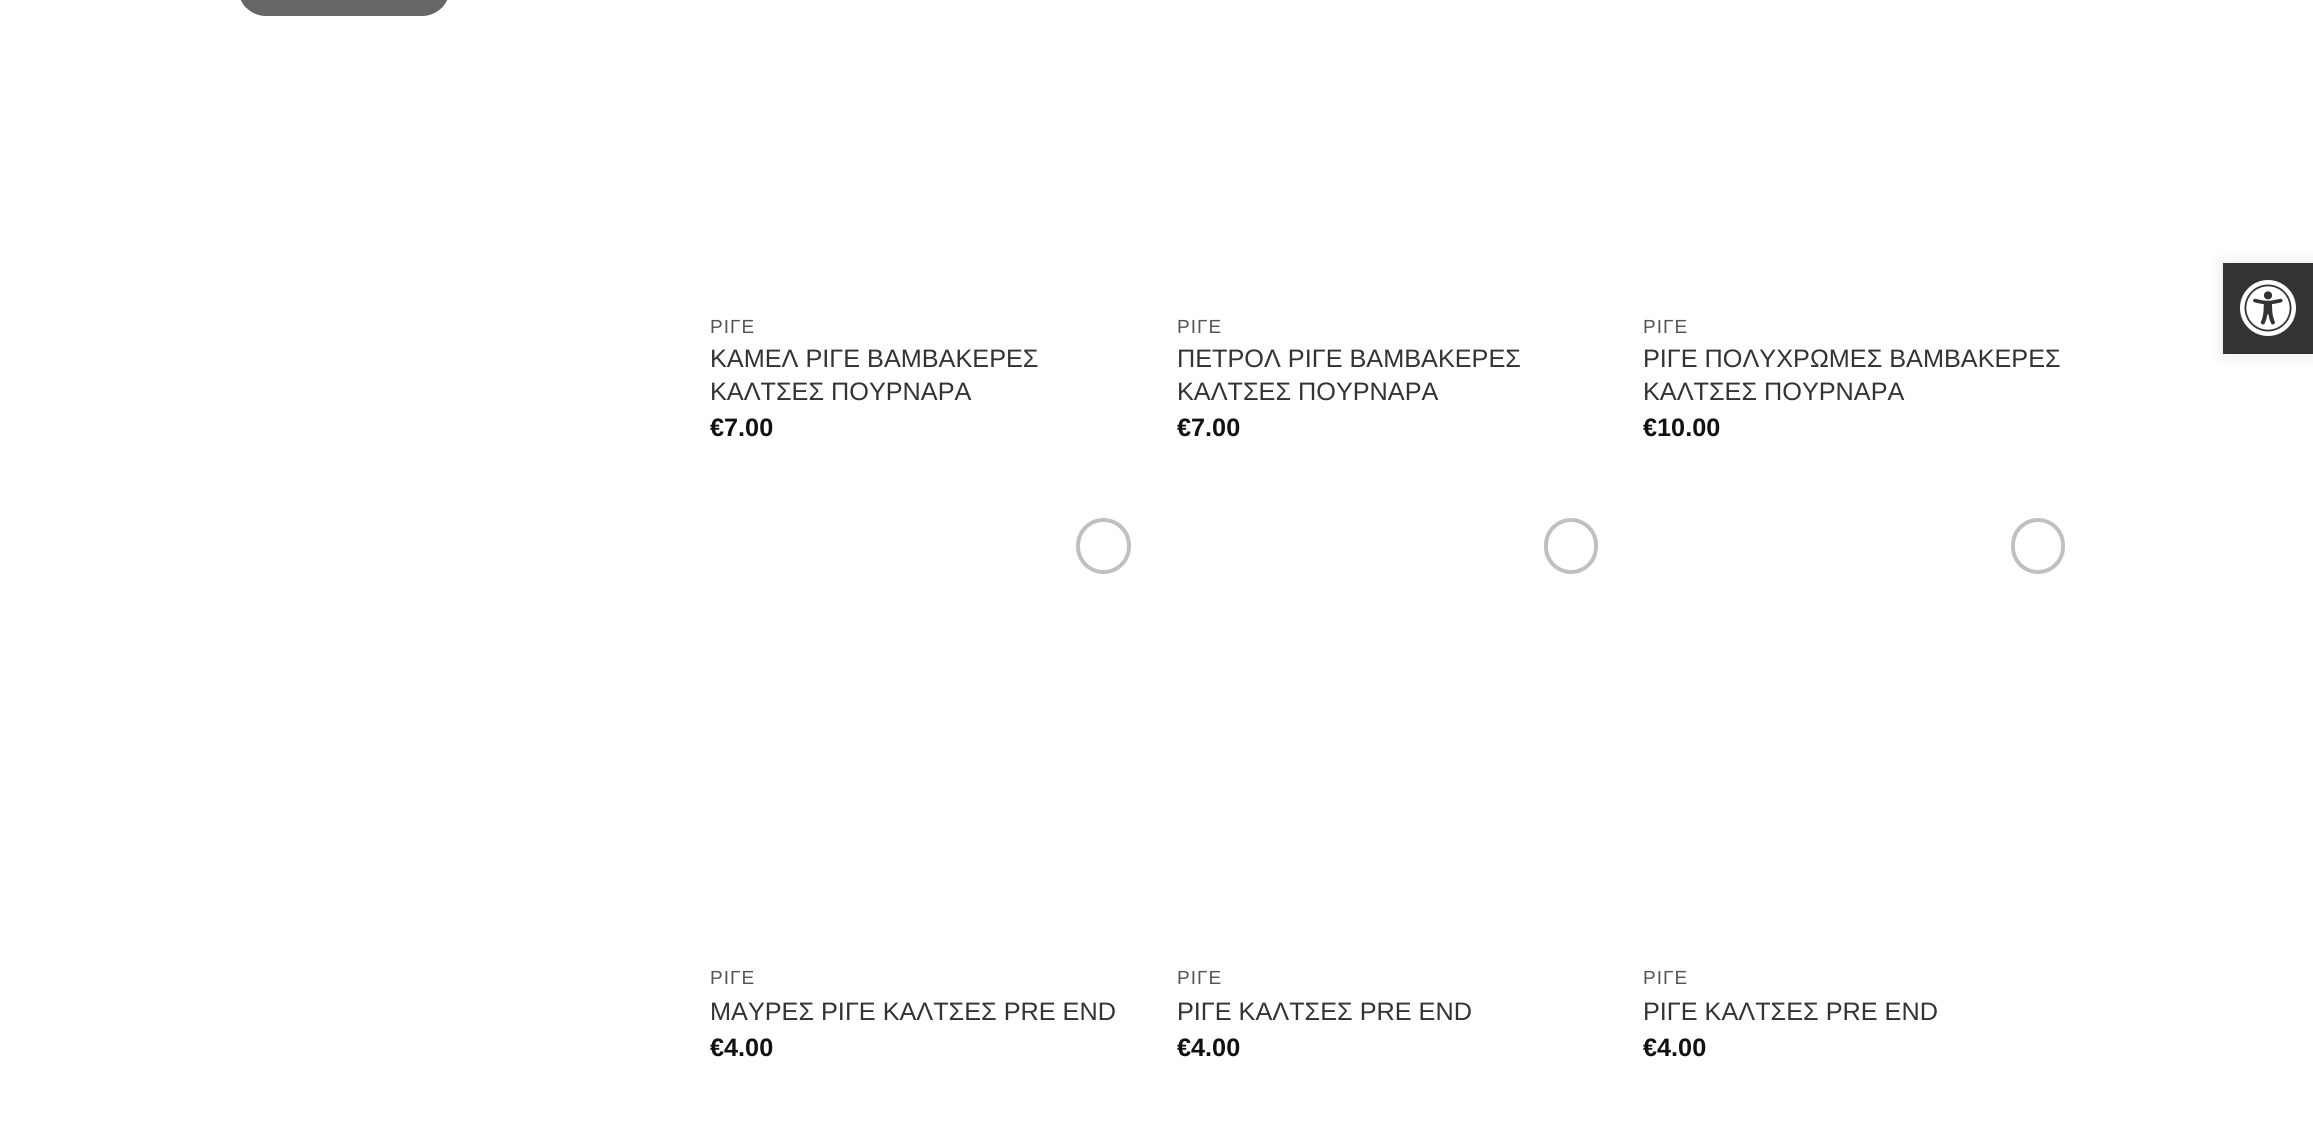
#include <cairo.h>
#include <math.h>
#include <stddef.h>


static void ink(cairo_t *ctx, unsigned color) {
    cairo_set_source_rgb(ctx, (color >> 16) / 255.0, (color >> 8 & 255) / 255.0, (color & 255) / 255.0);
}

static void write_spaced(cairo_t *ctx, double x, double y, const char *s, double letter, double word) {
    cairo_move_to(ctx, x, y);
    while (*s) {
        char ch[5] = {0};
        int n = 0;
        do ch[n++] = *s++; while ((*s & 0xC0) == 0x80);
        cairo_show_text(ctx, ch);
        cairo_rel_move_to(ctx, letter + word * (*ch == ' '), 0);
    }
}

static void round_path(cairo_t *ctx, double x, double y, double w, double h, double r) {
    cairo_new_sub_path(ctx);
    cairo_arc(ctx, x + w - r, y + h - r, r, 0, M_PI / 2);
    cairo_arc(ctx, x + r, y + h - r, r, M_PI / 2, M_PI);
    cairo_arc(ctx, x + r, y + r, r, M_PI, 1.5 * M_PI);
    cairo_arc(ctx, x + w - r, y + r, r, 1.5 * M_PI, 2 * M_PI);
    cairo_close_path(ctx);
}

static void blur_box(cairo_t *ctx, double x, double y, double w, double h, double r, double blur, double alpha) {
    cairo_push_group_with_content(ctx, CAIRO_CONTENT_ALPHA);
    cairo_set_operator(ctx, CAIRO_OPERATOR_SOURCE);
    for (int i = 15; i >= -15 && fmin(w, h) + blur * i / 3 > 0; i -= 2) {
        double e = blur * i / 6;
        cairo_set_source_rgba(ctx, 0, 0, 0, alpha * erfc((i - 1) / 8.5) / 2);
        round_path(ctx, x - e, y - e, w + 2 * e, h + 2 * e, fmax(0, fmin(r + e + blur * .6, fmin(w, h) / 2 + e)));
        cairo_fill(ctx);
    }
    cairo_pattern_t *soft = cairo_pop_group(ctx);
    cairo_mask(ctx, soft);
    cairo_pattern_destroy(soft);
}

static void paste(cairo_t *ctx, const char *path, double x, double y, double w, double h) {
    cairo_surface_t *image = cairo_image_surface_create_from_png(path);
    cairo_save(ctx);
    cairo_set_source_surface(ctx, image, x, y);
    cairo_rectangle(ctx, x, y, w, h);
    cairo_fill(ctx);
    cairo_restore(ctx);
    cairo_surface_destroy(image);
}

int main(void) {
    cairo_surface_t *surface = cairo_image_surface_create(CAIRO_FORMAT_RGB24, 2313, 1133);
    cairo_t *ctx = cairo_create(surface);
    cairo_font_options_t *options = cairo_font_options_create();
    cairo_font_options_set_hint_metrics(options, CAIRO_HINT_METRICS_OFF);
    cairo_font_options_set_hint_style(options, CAIRO_HINT_STYLE_NONE);
    cairo_set_font_options(ctx, options);
    cairo_set_miter_limit(ctx, 4);
    ink(ctx, 0xFFFFFF);
    cairo_paint(ctx);
    ink(ctx, 0x666666);
    round_path(ctx, 238, -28, 212, 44, 28);
    cairo_fill(ctx);
    cairo_select_font_face(ctx, "Liberation Sans", CAIRO_FONT_SLANT_NORMAL, CAIRO_FONT_WEIGHT_NORMAL);
    cairo_set_font_size(ctx, 19);
    ink(ctx, 0x545454);
    write_spaced(ctx, 710, 333, "ΡΙΓΕ", 1, 0);
    cairo_set_font_size(ctx, 25.25);
    ink(ctx, 0x333333);
    cairo_move_to(ctx, 710, 367);
    cairo_show_text(ctx, "ΚΑΜΕΛ ΡΙΓΕ ΒΑΜΒΑΚΕΡΕΣ");
    cairo_move_to(ctx, 710, 400);
    cairo_show_text(ctx, "ΚΑΛΤΣΕΣ ΠΟΥΡΝΑΡΑ");
    cairo_select_font_face(ctx, "Liberation Sans", CAIRO_FONT_SLANT_NORMAL, CAIRO_FONT_WEIGHT_BOLD);
    ink(ctx, 0x111111);
    cairo_move_to(ctx, 710, 436);
    cairo_show_text(ctx, "€7.00");
    cairo_select_font_face(ctx, "Liberation Sans", CAIRO_FONT_SLANT_NORMAL, CAIRO_FONT_WEIGHT_NORMAL);
    cairo_set_font_size(ctx, 19);
    ink(ctx, 0x545454);
    write_spaced(ctx, 1177, 333, "ΡΙΓΕ", 1, 0);
    cairo_set_font_size(ctx, 25.25);
    ink(ctx, 0x333333);
    cairo_move_to(ctx, 1177, 367);
    cairo_show_text(ctx, "ΠΕΤΡΟΛ ΡΙΓΕ ΒΑΜΒΑΚΕΡΕΣ");
    cairo_move_to(ctx, 1177, 400);
    cairo_show_text(ctx, "ΚΑΛΤΣΕΣ ΠΟΥΡΝΑΡΑ");
    cairo_select_font_face(ctx, "Liberation Sans", CAIRO_FONT_SLANT_NORMAL, CAIRO_FONT_WEIGHT_BOLD);
    ink(ctx, 0x111111);
    cairo_move_to(ctx, 1177, 436);
    cairo_show_text(ctx, "€7.00");
    cairo_select_font_face(ctx, "Liberation Sans", CAIRO_FONT_SLANT_NORMAL, CAIRO_FONT_WEIGHT_NORMAL);
    cairo_set_font_size(ctx, 19);
    ink(ctx, 0x545454);
    write_spaced(ctx, 1643, 333, "ΡΙΓΕ", 1, 0);
    cairo_set_font_size(ctx, 25.25);
    ink(ctx, 0x333333);
    cairo_move_to(ctx, 1643, 367);
    cairo_show_text(ctx, "ΡΙΓΕ ΠΟΛΥΧΡΩΜΕΣ ΒΑΜΒΑΚΕΡΕΣ");
    cairo_move_to(ctx, 1643, 400);
    cairo_show_text(ctx, "ΚΑΛΤΣΕΣ ΠΟΥΡΝΑΡΑ");
    cairo_select_font_face(ctx, "Liberation Sans", CAIRO_FONT_SLANT_NORMAL, CAIRO_FONT_WEIGHT_BOLD);
    ink(ctx, 0x111111);
    cairo_move_to(ctx, 1643, 436);
    cairo_show_text(ctx, "€10.00");
    round_path(ctx, 1078, 520, 51, 52, 25.5);
    ink(ctx, 0xC0C0C0);
    cairo_set_line_width(ctx, 4);
    cairo_stroke(ctx);
    cairo_select_font_face(ctx, "Liberation Sans", CAIRO_FONT_SLANT_NORMAL, CAIRO_FONT_WEIGHT_NORMAL);
    cairo_set_font_size(ctx, 19);
    ink(ctx, 0x545454);
    write_spaced(ctx, 710, 984, "ΡΙΓΕ", 1, 0);
    cairo_set_font_size(ctx, 25.25);
    ink(ctx, 0x333333);
    cairo_move_to(ctx, 710, 1020);
    cairo_show_text(ctx, "ΜΑΥΡΕΣ ΡΙΓΕ ΚΑΛΤΣΕΣ PRE END");
    cairo_select_font_face(ctx, "Liberation Sans", CAIRO_FONT_SLANT_NORMAL, CAIRO_FONT_WEIGHT_BOLD);
    ink(ctx, 0x111111);
    cairo_move_to(ctx, 710, 1056);
    cairo_show_text(ctx, "€4.00");
    round_path(ctx, 1546, 520, 50, 52, 25);
    ink(ctx, 0xC0C0C0);
    cairo_stroke(ctx);
    cairo_select_font_face(ctx, "Liberation Sans", CAIRO_FONT_SLANT_NORMAL, CAIRO_FONT_WEIGHT_NORMAL);
    cairo_set_font_size(ctx, 19);
    ink(ctx, 0x545454);
    write_spaced(ctx, 1177, 984, "ΡΙΓΕ", 1, 0);
    cairo_set_font_size(ctx, 25.25);
    ink(ctx, 0x333333);
    cairo_move_to(ctx, 1177, 1020);
    cairo_show_text(ctx, "ΡΙΓΕ ΚΑΛΤΣΕΣ PRE END");
    cairo_select_font_face(ctx, "Liberation Sans", CAIRO_FONT_SLANT_NORMAL, CAIRO_FONT_WEIGHT_BOLD);
    ink(ctx, 0x111111);
    cairo_move_to(ctx, 1177, 1056);
    cairo_show_text(ctx, "€4.00");
    round_path(ctx, 2013, 520, 50, 52, 25);
    ink(ctx, 0xC0C0C0);
    cairo_stroke(ctx);
    cairo_select_font_face(ctx, "Liberation Sans", CAIRO_FONT_SLANT_NORMAL, CAIRO_FONT_WEIGHT_NORMAL);
    cairo_set_font_size(ctx, 19);
    ink(ctx, 0x545454);
    write_spaced(ctx, 1643, 984, "ΡΙΓΕ", 1, 0);
    cairo_set_font_size(ctx, 25.25);
    ink(ctx, 0x333333);
    cairo_move_to(ctx, 1643, 1020);
    cairo_show_text(ctx, "ΡΙΓΕ ΚΑΛΤΣΕΣ PRE END");
    cairo_select_font_face(ctx, "Liberation Sans", CAIRO_FONT_SLANT_NORMAL, CAIRO_FONT_WEIGHT_BOLD);
    ink(ctx, 0x111111);
    cairo_move_to(ctx, 1643, 1056);
    cairo_show_text(ctx, "€4.00");
    ink(ctx, 0x000000);
    blur_box(ctx, 2223, 263, 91, 91, 0, 9, 0.1);
    ink(ctx, 0x333333);
    cairo_rectangle(ctx, 2223, 263, 90, 91);
    cairo_fill(ctx);
    paste(ctx, "media/1.png", 2240, 280, 56, 56);
    cairo_surface_write_to_png(surface, "image.png");
    cairo_font_options_destroy(options);
    cairo_destroy(ctx);
    cairo_surface_destroy(surface);
    return 0;
}
